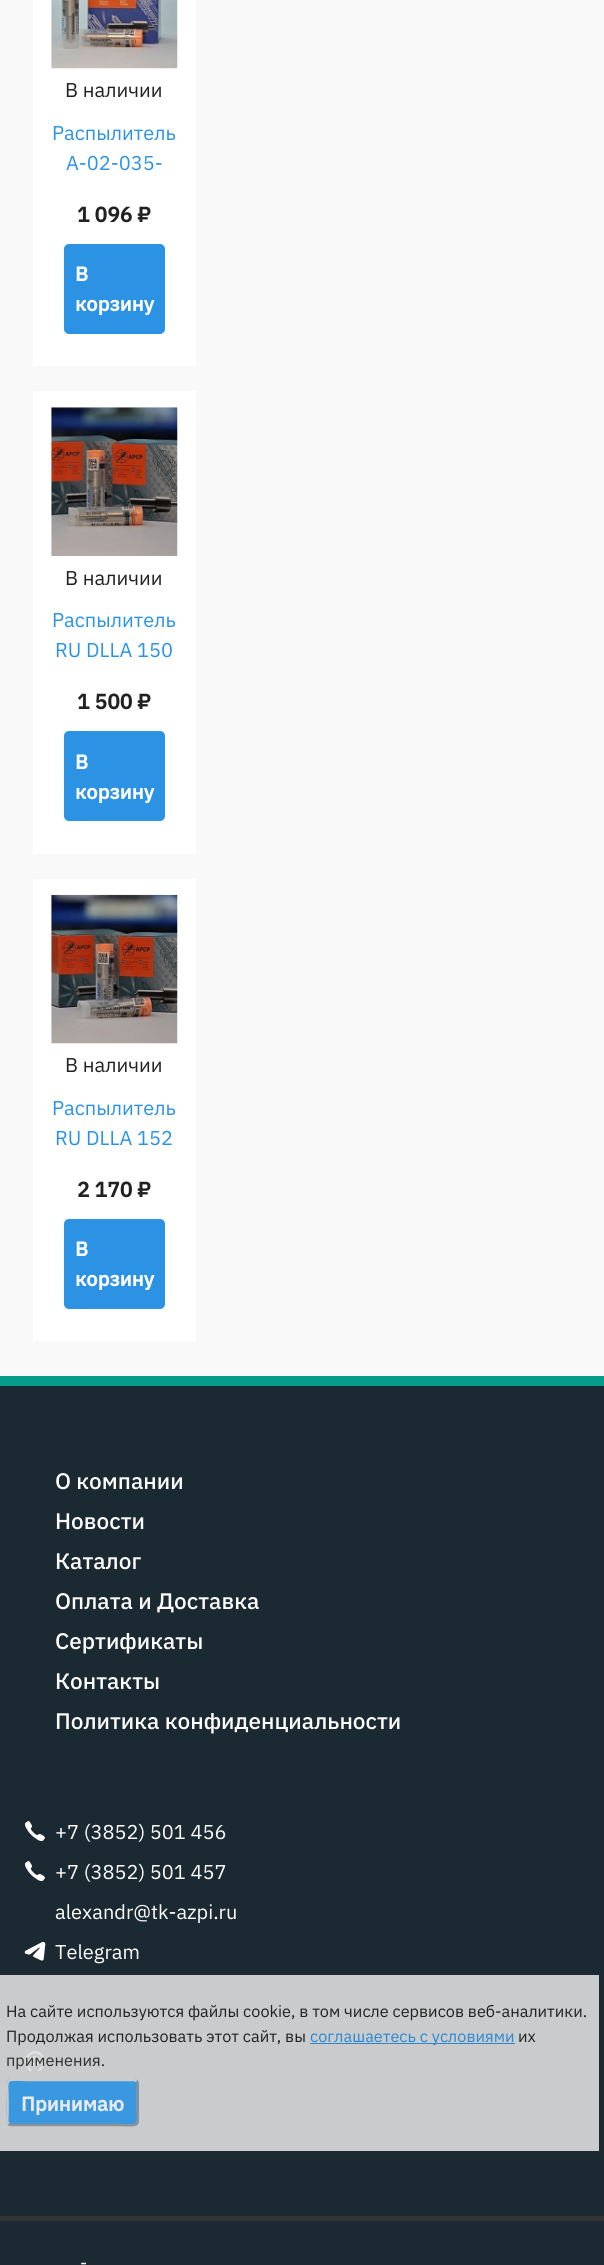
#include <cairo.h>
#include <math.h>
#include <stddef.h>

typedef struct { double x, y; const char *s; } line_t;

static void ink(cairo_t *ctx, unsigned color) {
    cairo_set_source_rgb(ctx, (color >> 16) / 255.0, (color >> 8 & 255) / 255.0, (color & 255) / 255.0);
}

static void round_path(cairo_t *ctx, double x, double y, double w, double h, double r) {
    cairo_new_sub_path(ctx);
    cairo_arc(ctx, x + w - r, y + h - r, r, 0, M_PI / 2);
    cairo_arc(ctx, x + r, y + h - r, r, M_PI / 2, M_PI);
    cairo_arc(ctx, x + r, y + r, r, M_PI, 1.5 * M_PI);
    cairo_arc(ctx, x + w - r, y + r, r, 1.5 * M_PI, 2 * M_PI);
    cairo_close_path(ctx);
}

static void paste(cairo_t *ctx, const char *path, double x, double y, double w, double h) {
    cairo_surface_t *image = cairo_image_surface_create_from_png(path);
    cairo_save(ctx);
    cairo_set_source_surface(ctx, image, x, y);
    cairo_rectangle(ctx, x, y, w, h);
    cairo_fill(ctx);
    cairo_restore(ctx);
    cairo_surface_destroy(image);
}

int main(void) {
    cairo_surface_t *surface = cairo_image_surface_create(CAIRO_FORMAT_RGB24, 604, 2265);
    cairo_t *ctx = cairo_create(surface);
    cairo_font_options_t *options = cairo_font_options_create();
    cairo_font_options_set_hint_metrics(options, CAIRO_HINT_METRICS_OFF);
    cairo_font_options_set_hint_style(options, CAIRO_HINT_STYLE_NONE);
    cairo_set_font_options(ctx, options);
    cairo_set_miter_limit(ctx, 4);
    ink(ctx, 0xF9F9F9);
    cairo_paint(ctx);
    ink(ctx, 0xFFFFFF);
    cairo_rectangle(ctx, 33, 0, 163, 366);
    cairo_fill(ctx);
    paste(ctx, "media/1.png", 51, 0, 127, 69);
    cairo_select_font_face(ctx, "IBM Plex Sans", CAIRO_FONT_SLANT_NORMAL, CAIRO_FONT_WEIGHT_NORMAL);
    cairo_set_font_size(ctx, 20);
    ink(ctx, 0x212121);
    cairo_move_to(ctx, 65, 97);
    cairo_show_text(ctx, "В наличии");
    ink(ctx, 0x2B92E4);
    cairo_move_to(ctx, 52, 140);
    cairo_show_text(ctx, "Распылитель");
    cairo_move_to(ctx, 66, 170);
    cairo_show_text(ctx, "А-02-035-");
    cairo_select_font_face(ctx, "IBM Plex Sans", CAIRO_FONT_SLANT_NORMAL, CAIRO_FONT_WEIGHT_BOLD);
    cairo_set_font_size(ctx, 21);
    ink(ctx, 0x212121);
    cairo_move_to(ctx, 77, 222);
    cairo_show_text(ctx, "1 096 ₽");
    ink(ctx, 0x2B92E4);
    round_path(ctx, 64, 244, 101, 90, 5);
    cairo_fill(ctx);
    cairo_set_font_size(ctx, 20);
    ink(ctx, 0xFFFFFF);
    cairo_move_to(ctx, 75, 281);
    cairo_show_text(ctx, "В");
    cairo_move_to(ctx, 75, 311);
    cairo_show_text(ctx, "корзину");
    cairo_rectangle(ctx, 33, 391, 163, 463);
    cairo_fill(ctx);
    paste(ctx, "media/2.png", 51, 407, 127, 149);
    cairo_select_font_face(ctx, "IBM Plex Sans", CAIRO_FONT_SLANT_NORMAL, CAIRO_FONT_WEIGHT_NORMAL);
    ink(ctx, 0x212121);
    cairo_move_to(ctx, 65, 585);
    cairo_show_text(ctx, "В наличии");
    ink(ctx, 0x2B92E4);
    cairo_move_to(ctx, 52, 627);
    cairo_show_text(ctx, "Распылитель");
    cairo_move_to(ctx, 55, 657);
    cairo_show_text(ctx, "RU DLLA 150");
    cairo_select_font_face(ctx, "IBM Plex Sans", CAIRO_FONT_SLANT_NORMAL, CAIRO_FONT_WEIGHT_BOLD);
    cairo_set_font_size(ctx, 21);
    ink(ctx, 0x212121);
    cairo_move_to(ctx, 77, 709);
    cairo_show_text(ctx, "1 500 ₽");
    ink(ctx, 0x2B92E4);
    round_path(ctx, 64, 731, 101, 90, 5);
    cairo_fill(ctx);
    cairo_set_font_size(ctx, 20);
    ink(ctx, 0xFFFFFF);
    cairo_move_to(ctx, 75, 769);
    cairo_show_text(ctx, "В");
    cairo_move_to(ctx, 75, 799);
    cairo_show_text(ctx, "корзину");
    cairo_rectangle(ctx, 33, 879, 163, 462);
    cairo_fill(ctx);
    paste(ctx, "media/3.png", 51, 894, 127, 150);
    cairo_select_font_face(ctx, "IBM Plex Sans", CAIRO_FONT_SLANT_NORMAL, CAIRO_FONT_WEIGHT_NORMAL);
    ink(ctx, 0x212121);
    cairo_move_to(ctx, 65, 1072);
    cairo_show_text(ctx, "В наличии");
    ink(ctx, 0x2B92E4);
    cairo_move_to(ctx, 52, 1115);
    cairo_show_text(ctx, "Распылитель");
    cairo_move_to(ctx, 55, 1145);
    cairo_show_text(ctx, "RU DLLA 152");
    cairo_select_font_face(ctx, "IBM Plex Sans", CAIRO_FONT_SLANT_NORMAL, CAIRO_FONT_WEIGHT_BOLD);
    cairo_set_font_size(ctx, 21);
    ink(ctx, 0x212121);
    cairo_move_to(ctx, 77, 1197);
    cairo_show_text(ctx, "2 170 ₽");
    ink(ctx, 0x2B92E4);
    round_path(ctx, 64, 1219, 101, 90, 5);
    cairo_fill(ctx);
    cairo_set_font_size(ctx, 20);
    ink(ctx, 0xFFFFFF);
    cairo_move_to(ctx, 75, 1256);
    cairo_show_text(ctx, "В");
    cairo_move_to(ctx, 75, 1286);
    cairo_show_text(ctx, "корзину");
    ink(ctx, 0x1B2932);
    cairo_rectangle(ctx, 0, 1386, 604, 879);
    cairo_fill(ctx);
    ink(ctx, 0x059D89);
    cairo_rectangle(ctx, 0, 1376, 604, 10);
    cairo_fill(ctx);
    cairo_select_font_face(ctx, "IBM Plex Sans Medium", CAIRO_FONT_SLANT_NORMAL, CAIRO_FONT_WEIGHT_NORMAL);
    cairo_set_font_size(ctx, 22.5);
    ink(ctx, 0xFFFFFF);
    {
        static const line_t items[] = {
            {55, 1489, "О компании"},
            {55, 1529, "Новости"},
            {55, 1569, "Каталог"},
            {55, 1609, "Оплата и Доставка"},
            {55, 1649, "Сертификаты"},
            {55, 1689, "Контакты"},
            {55, 1729, "Политика конфиденциальности"},
        };
        for (size_t i = 0; i < sizeof items / sizeof *items; i++) {
            cairo_move_to(ctx, items[i].x, items[i].y);
            cairo_show_text(ctx, items[i].s);
        }
    }
    paste(ctx, "media/4.png", 25, 1821, 20, 20);
    cairo_select_font_face(ctx, "IBM Plex Sans", CAIRO_FONT_SLANT_NORMAL, CAIRO_FONT_WEIGHT_NORMAL);
    cairo_set_font_size(ctx, 20);
    cairo_move_to(ctx, 55, 1839);
    cairo_show_text(ctx, "+7 (3852) 501 456");
    paste(ctx, "media/4.png", 25, 1861, 20, 20);
    cairo_move_to(ctx, 55, 1879);
    cairo_show_text(ctx, "+7 (3852) 501 457");
    cairo_move_to(ctx, 55, 1919);
    cairo_show_text(ctx, "alexandr@tk-azpi.ru");
    paste(ctx, "media/5.png", 24, 1941, 22, 20);
    cairo_move_to(ctx, 55, 1959);
    cairo_show_text(ctx, "Telegram");
    paste(ctx, "media/6.png", 25, 2051, 20, 20);
    ink(ctx, 0x333333);
    cairo_rectangle(ctx, 0, 2216, 604, 5);
    cairo_fill(ctx);
    cairo_set_font_size(ctx, 18);
    ink(ctx, 0xFFFFFF);
    cairo_move_to(ctx, 80, 2269);
    cairo_show_text(ctx, "-");
    cairo_set_source_rgba(ctx, 0.867, 0.867, 0.867, 0.9);
    cairo_rectangle(ctx, 0, 1975, 599, 176);
    cairo_fill(ctx);
    cairo_set_font_size(ctx, 16.25);
    ink(ctx, 0x212121);
    cairo_move_to(ctx, 6, 2017);
    cairo_show_text(ctx, "На сайте используются файлы сооkіе, в том числе сервисов веб-аналитики.");
    cairo_move_to(ctx, 6, 2042);
    cairo_show_text(ctx, "Продолжая использовать этот сайт, вы");
    ink(ctx, 0x2988D2);
    cairo_rectangle(ctx, 310, 2043, 205, 1);
    cairo_fill(ctx);
    cairo_move_to(ctx, 310, 2042);
    cairo_show_text(ctx, "соглашаетесь с условиями");
    ink(ctx, 0x212121);
    cairo_move_to(ctx, 518, 2042);
    cairo_show_text(ctx, "их");
    ink(ctx, 0x2D2D2D);
    cairo_move_to(ctx, 6, 2066);
    cairo_show_text(ctx, "применения.");
    cairo_set_source_rgba(ctx, 0.169, 0.573, 0.894, 0.9);
    round_path(ctx, 6, 2079, 133, 47, 5);
    cairo_fill(ctx);
    cairo_new_path(ctx);
    cairo_move_to(ctx, 136.5, 2081);
    cairo_curve_to(ctx, 138.5, 2083, 137.5, 2088, 137.5, 2090);
    cairo_line_to(ctx, 137.5, 2102.5);
    cairo_curve_to(ctx, 137.5, 2130, 142.5, 2125, 113.5, 2125);
    cairo_line_to(ctx, 11.5, 2125);
    cairo_line_to(ctx, 8.5, 2124);
    cairo_set_source_rgba(ctx, 0.576, 0.576, 0.576, 0.9);
    cairo_set_line_width(ctx, 2.5);
    cairo_stroke(ctx);
    cairo_new_path(ctx);
    cairo_move_to(ctx, 8.5, 2124);
    cairo_curve_to(ctx, 6.5, 2122, 7.5, 2117, 7.5, 2115);
    cairo_line_to(ctx, 7.5, 2102.5);
    cairo_curve_to(ctx, 7.5, 2075, 2.5, 2080, 31.5, 2080);
    cairo_line_to(ctx, 134, 2080);
    cairo_line_to(ctx, 136.5, 2081);
    ink(ctx, 0xCACBCC);
    cairo_stroke(ctx);
    cairo_select_font_face(ctx, "IBM Plex Sans", CAIRO_FONT_SLANT_NORMAL, CAIRO_FONT_WEIGHT_BOLD);
    cairo_set_font_size(ctx, 20);
    ink(ctx, 0xE8EAEB);
    cairo_move_to(ctx, 21, 2111);
    cairo_show_text(ctx, "Принимаю");
    cairo_surface_write_to_png(surface, "image.png");
    cairo_font_options_destroy(options);
    cairo_destroy(ctx);
    cairo_surface_destroy(surface);
    return 0;
}
